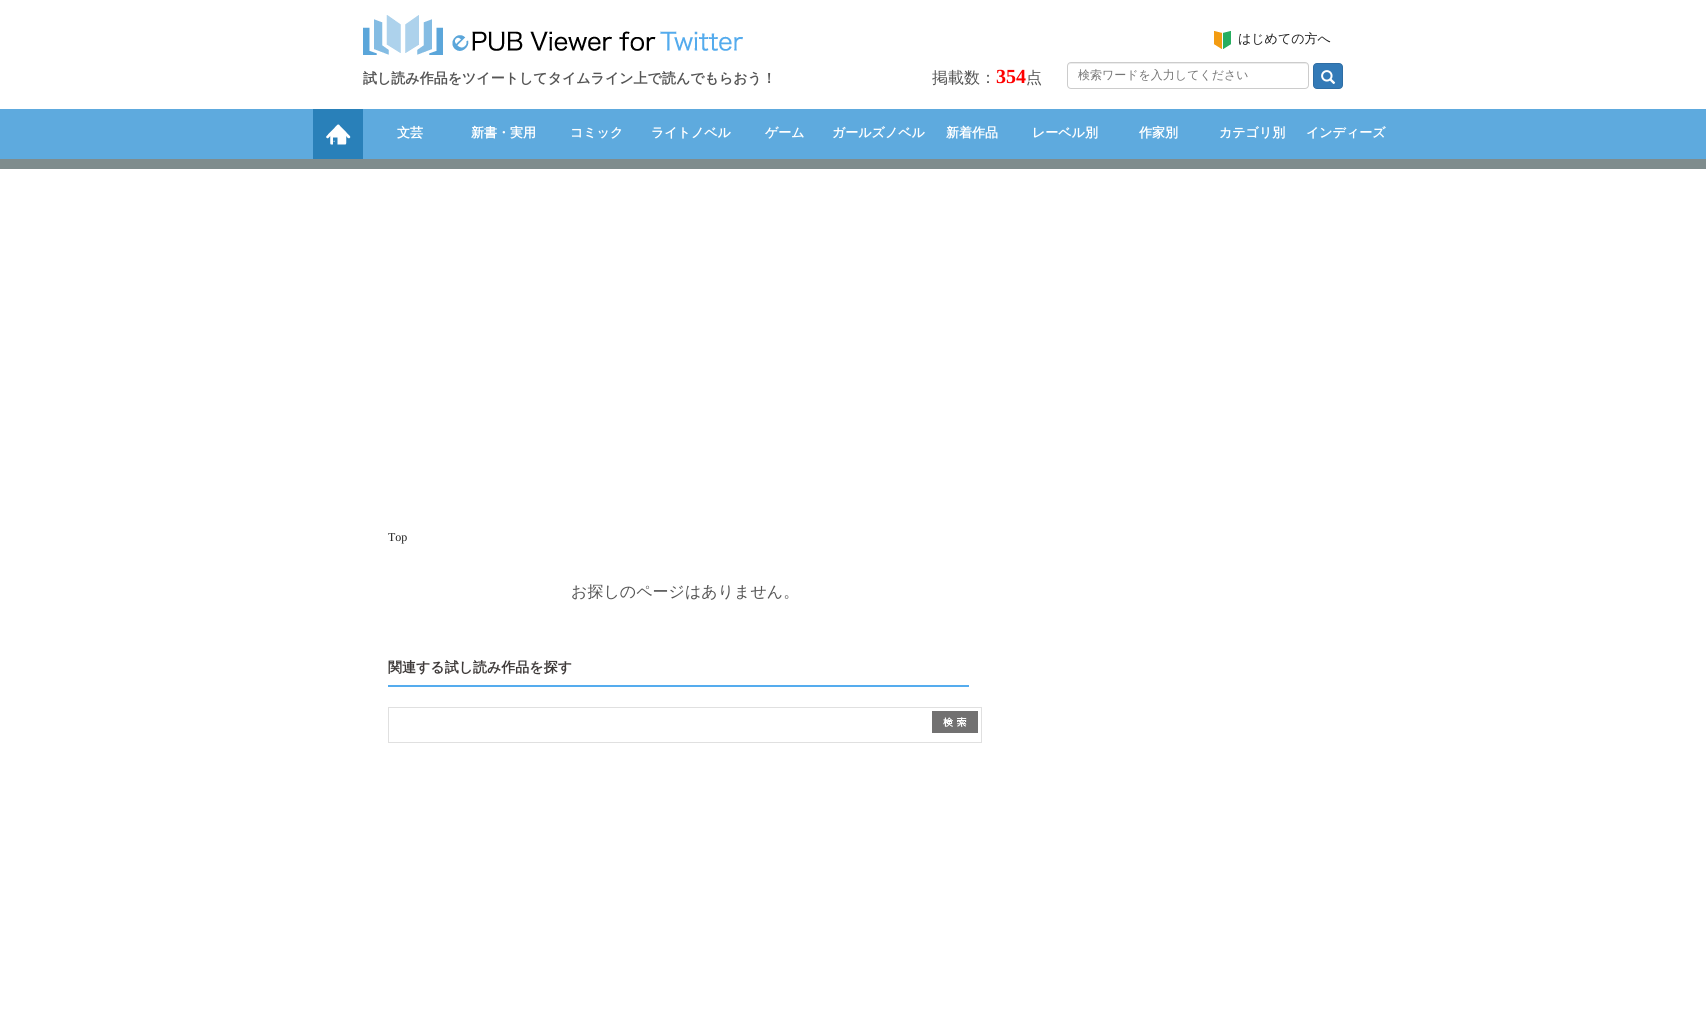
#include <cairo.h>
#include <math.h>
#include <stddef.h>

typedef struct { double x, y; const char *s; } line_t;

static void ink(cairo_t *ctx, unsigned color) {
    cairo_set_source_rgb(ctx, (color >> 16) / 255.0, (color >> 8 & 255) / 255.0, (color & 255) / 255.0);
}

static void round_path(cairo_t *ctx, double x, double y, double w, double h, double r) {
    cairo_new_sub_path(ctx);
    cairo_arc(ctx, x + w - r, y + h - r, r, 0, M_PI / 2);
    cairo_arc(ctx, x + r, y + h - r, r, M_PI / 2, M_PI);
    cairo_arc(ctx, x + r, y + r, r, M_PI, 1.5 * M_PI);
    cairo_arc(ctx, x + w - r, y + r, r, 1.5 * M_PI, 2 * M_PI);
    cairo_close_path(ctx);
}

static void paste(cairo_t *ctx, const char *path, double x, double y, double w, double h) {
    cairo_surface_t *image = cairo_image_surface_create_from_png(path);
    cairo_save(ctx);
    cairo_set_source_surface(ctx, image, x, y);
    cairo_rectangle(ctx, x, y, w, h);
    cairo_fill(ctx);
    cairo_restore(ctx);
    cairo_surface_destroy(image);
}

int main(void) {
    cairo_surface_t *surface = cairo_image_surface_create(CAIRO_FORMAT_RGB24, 1706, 1030);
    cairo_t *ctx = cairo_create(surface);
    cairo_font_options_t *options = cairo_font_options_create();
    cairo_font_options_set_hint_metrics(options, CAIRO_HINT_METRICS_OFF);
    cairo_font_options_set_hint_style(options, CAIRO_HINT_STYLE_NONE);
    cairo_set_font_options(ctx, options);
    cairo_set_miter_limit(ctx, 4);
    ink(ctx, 0xFFFFFF);
    cairo_paint(ctx);
    paste(ctx, "media/1.png", 363, 15, 380, 40);
    paste(ctx, "media/2.png", 1214, 31, 17, 18);
    cairo_select_font_face(ctx, "WenQuanYi Zen Hei Medium", CAIRO_FONT_SLANT_NORMAL, CAIRO_FONT_WEIGHT_NORMAL);
    cairo_set_font_size(ctx, 13);
    ink(ctx, 0x1E1E1E);
    cairo_move_to(ctx, 1238, 43);
    cairo_show_text(ctx, "はじめての方へ");
    cairo_select_font_face(ctx, "WenQuanYi Zen Hei", CAIRO_FONT_SLANT_NORMAL, CAIRO_FONT_WEIGHT_BOLD);
    cairo_set_font_size(ctx, 14);
    ink(ctx, 0x555555);
    cairo_move_to(ctx, 363, 83);
    cairo_show_text(ctx, "試し読み作品をツイートしてタイムライン上で読んでもらおう！");
    cairo_select_font_face(ctx, "WenQuanYi Zen Hei Medium", CAIRO_FONT_SLANT_NORMAL, CAIRO_FONT_WEIGHT_NORMAL);
    cairo_set_font_size(ctx, 16);
    cairo_move_to(ctx, 932, 83);
    cairo_show_text(ctx, "掲載数：");
    cairo_select_font_face(ctx, "Liberation Serif", CAIRO_FONT_SLANT_NORMAL, CAIRO_FONT_WEIGHT_BOLD);
    cairo_set_font_size(ctx, 20);
    ink(ctx, 0xFF0000);
    cairo_move_to(ctx, 996, 83);
    cairo_show_text(ctx, "354");
    cairo_select_font_face(ctx, "WenQuanYi Zen Hei Medium", CAIRO_FONT_SLANT_NORMAL, CAIRO_FONT_WEIGHT_NORMAL);
    cairo_set_font_size(ctx, 16);
    ink(ctx, 0x555555);
    cairo_move_to(ctx, 1026, 83);
    cairo_show_text(ctx, "点");
    ink(ctx, 0xECECEC);
    cairo_new_path(ctx);
    cairo_move_to(ctx, 1071, 64);
    cairo_line_to(ctx, 1306, 64);
    cairo_line_to(ctx, 1308, 65);
    cairo_line_to(ctx, 1308, 67);
    cairo_curve_to(ctx, 1308, 65, 1307, 63, 1305, 63);
    cairo_line_to(ctx, 1071, 63);
    cairo_curve_to(ctx, 1069, 63, 1068, 65, 1068, 67);
    cairo_curve_to(ctx, 1068, 65, 1069, 64, 1071, 64);
    cairo_close_path(ctx);
    cairo_fill(ctx);
    round_path(ctx, 1067.5, 62.5, 241, 26, 3.5);
    ink(ctx, 0xCCCCCC);
    cairo_set_line_width(ctx, 1);
    cairo_stroke(ctx);
    cairo_set_font_size(ctx, 12);
    ink(ctx, 0x757575);
    cairo_move_to(ctx, 1078, 79);
    cairo_show_text(ctx, "検索ワードを入力してください");
    ink(ctx, 0x337AB7);
    round_path(ctx, 1313.5, 63.5, 29, 25, 3.5);
    cairo_fill_preserve(ctx);
    ink(ctx, 0x2E6DA4);
    cairo_stroke(ctx);
    paste(ctx, "media/3.png", 1321, 70, 15, 14);
    ink(ctx, 0x5EAADE);
    cairo_rectangle(ctx, 0, 109, 1706, 50);
    cairo_fill(ctx);
    ink(ctx, 0x7F8C8D);
    cairo_rectangle(ctx, 0, 159, 1706, 10);
    cairo_fill(ctx);
    paste(ctx, "media/4.png", 313, 109, 50, 50);
    cairo_select_font_face(ctx, "WenQuanYi Zen Hei", CAIRO_FONT_SLANT_NORMAL, CAIRO_FONT_WEIGHT_BOLD);
    cairo_set_font_size(ctx, 13);
    ink(ctx, 0xFFFFFF);
    {
        static const line_t items[] = {
            {397, 137, "文芸"},
            {471, 137, "新書・実用"},
            {570, 137, "コミック"},
            {651, 137, "ライトノベル"},
            {765, 137, "ゲーム"},
            {832, 137, "ガールズノベル"},
            {946, 137, "新着作品"},
            {1032, 137, "レーベル別"},
            {1139, 137, "作家別"},
            {1219, 137, "カテゴリ別"},
            {1306, 137, "インディーズ"},
        };
        for (size_t i = 0; i < sizeof items / sizeof *items; i++) {
            cairo_move_to(ctx, items[i].x, items[i].y);
            cairo_show_text(ctx, items[i].s);
        }
    }
    cairo_select_font_face(ctx, "Liberation Serif", CAIRO_FONT_SLANT_NORMAL, CAIRO_FONT_WEIGHT_NORMAL);
    cairo_set_font_size(ctx, 12);
    ink(ctx, 0x1E1E1E);
    cairo_move_to(ctx, 388, 541);
    cairo_show_text(ctx, "Top");
    cairo_select_font_face(ctx, "WenQuanYi Zen Hei Medium", CAIRO_FONT_SLANT_NORMAL, CAIRO_FONT_WEIGHT_NORMAL);
    cairo_set_font_size(ctx, 16);
    ink(ctx, 0x555555);
    cairo_move_to(ctx, 571, 597);
    cairo_show_text(ctx, "お探しのページはありません。");
    ink(ctx, 0x55ACEE);
    cairo_rectangle(ctx, 388, 685, 581, 2);
    cairo_fill(ctx);
    cairo_select_font_face(ctx, "WenQuanYi Zen Hei", CAIRO_FONT_SLANT_NORMAL, CAIRO_FONT_WEIGHT_BOLD);
    cairo_set_font_size(ctx, 14);
    ink(ctx, 0x3E3A39);
    cairo_move_to(ctx, 388, 672);
    cairo_show_text(ctx, "関連する試し読み作品を探す");
    cairo_rectangle(ctx, 388.5, 707.5, 593, 35);
    ink(ctx, 0xE0E0E0);
    cairo_stroke(ctx);
    paste(ctx, "media/5.png", 932, 711, 46, 22);
    cairo_surface_write_to_png(surface, "image.png");
    cairo_font_options_destroy(options);
    cairo_destroy(ctx);
    cairo_surface_destroy(surface);
    return 0;
}
